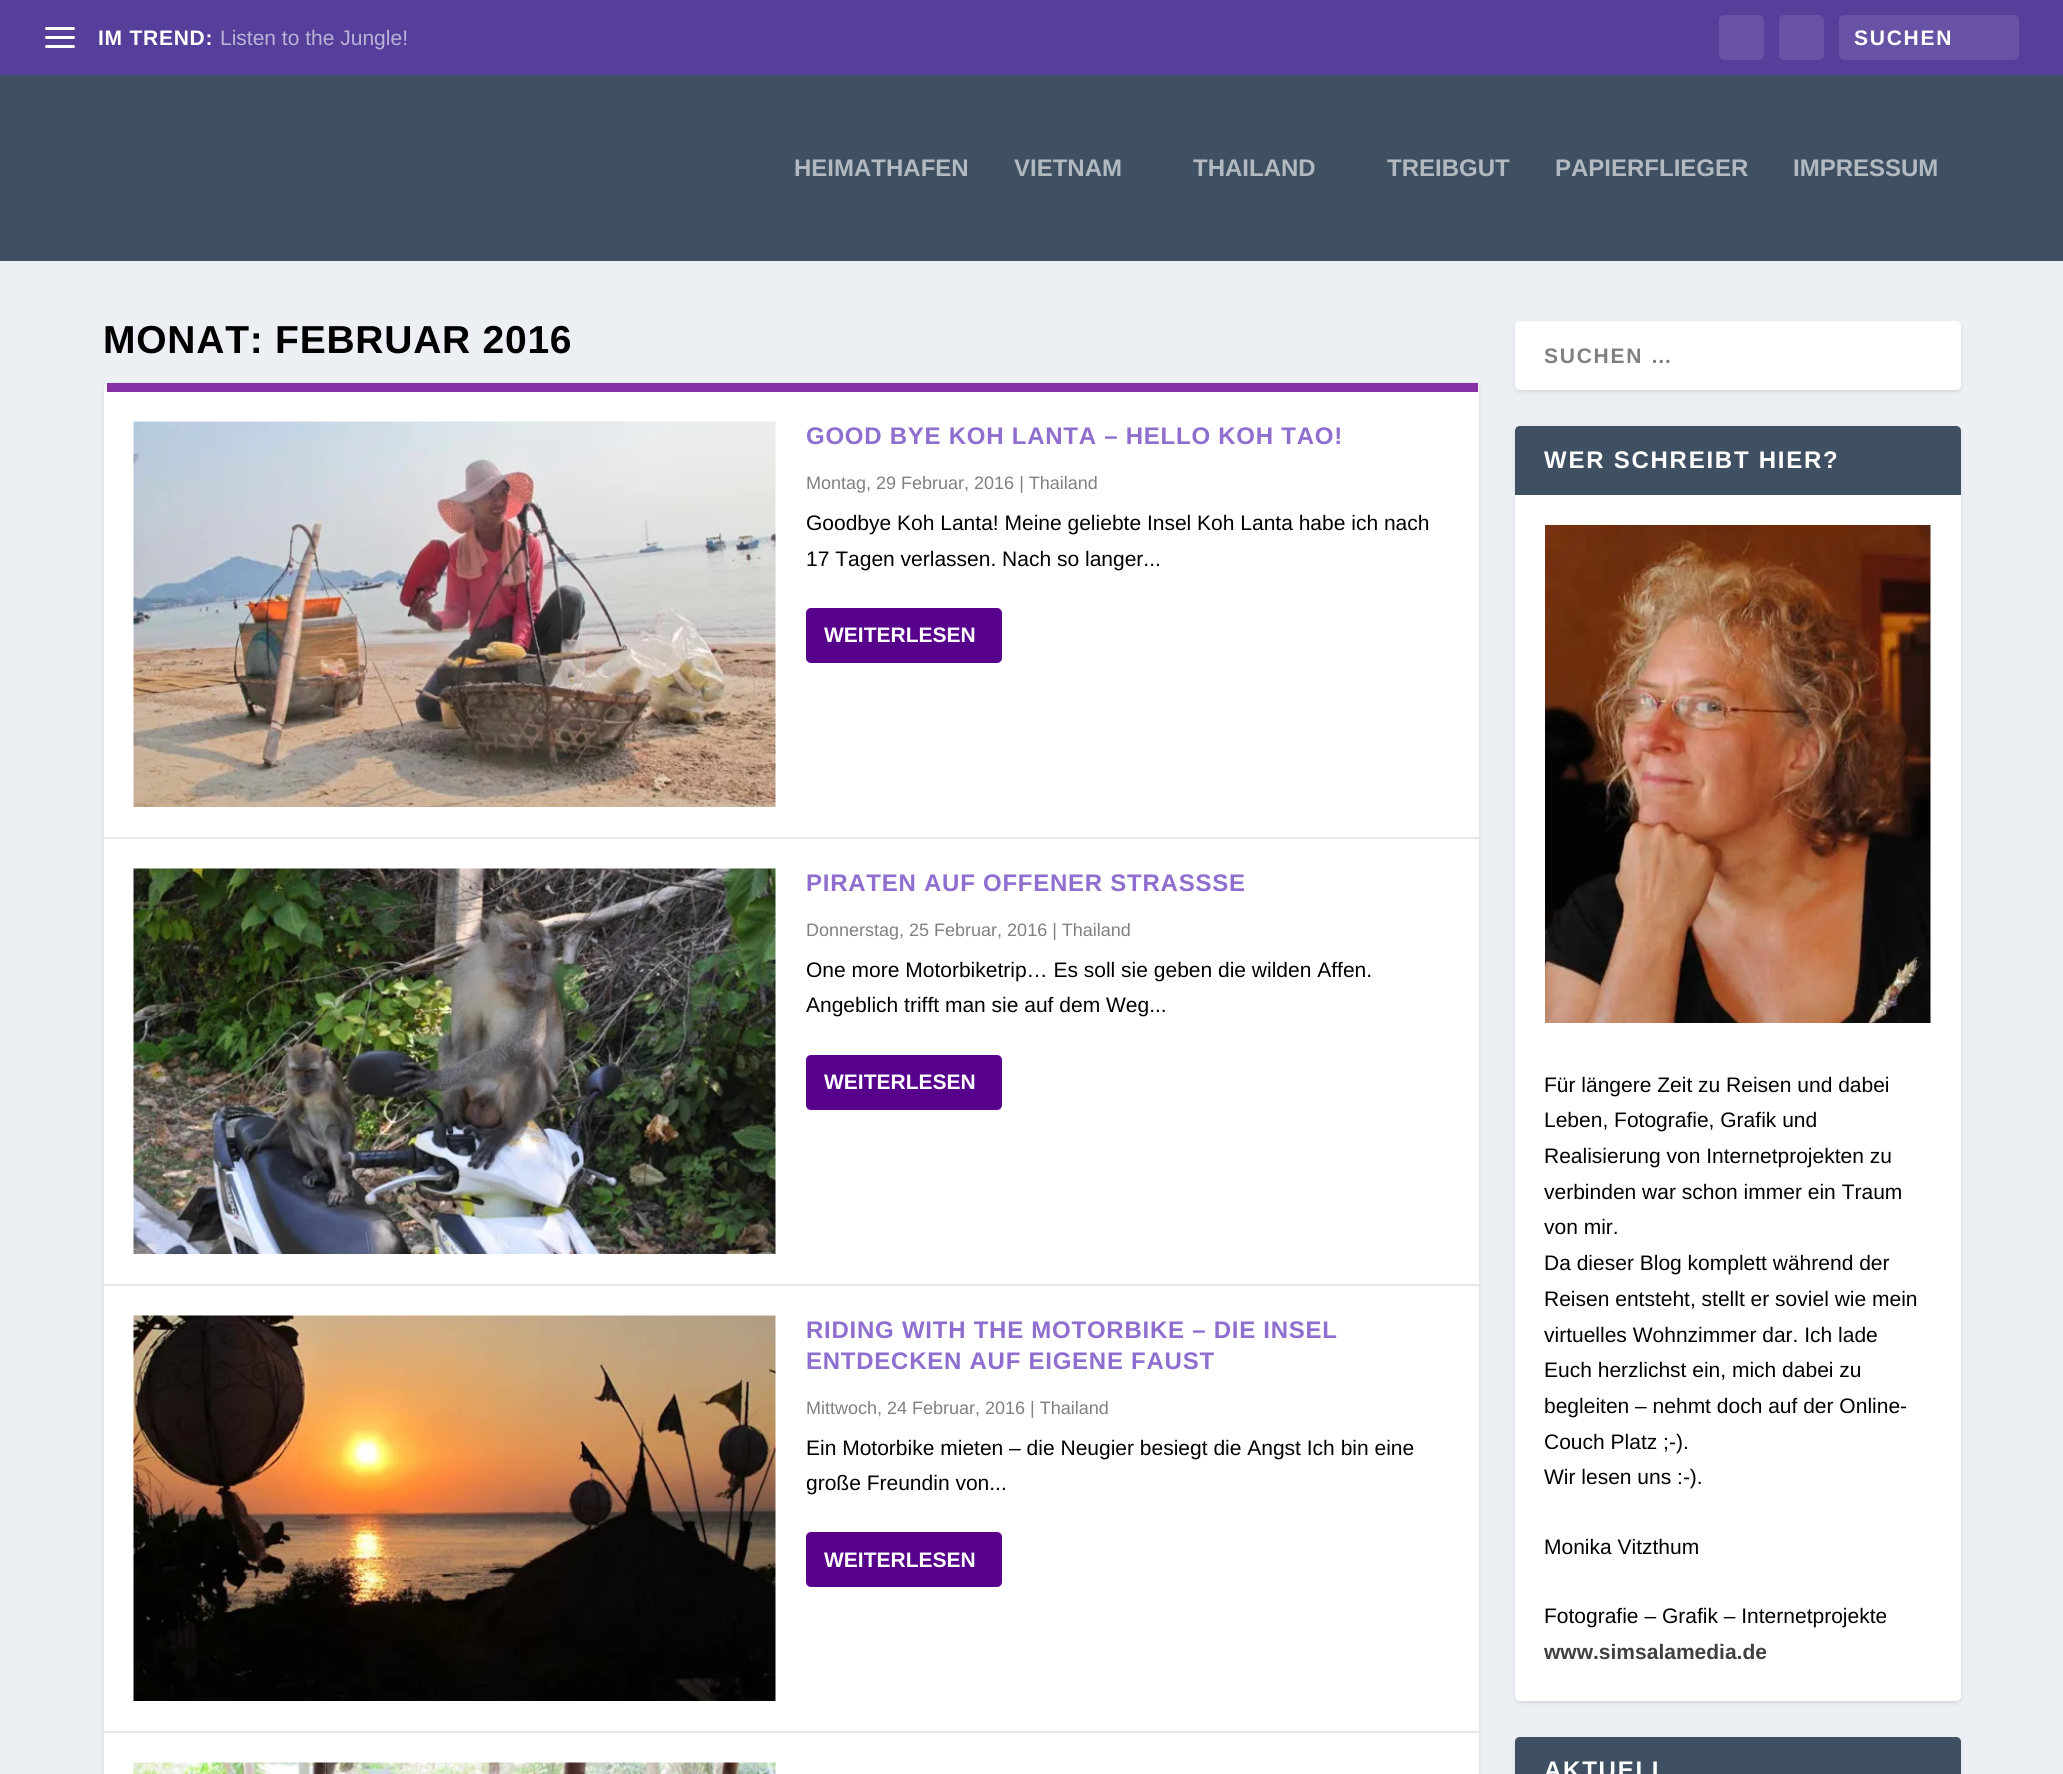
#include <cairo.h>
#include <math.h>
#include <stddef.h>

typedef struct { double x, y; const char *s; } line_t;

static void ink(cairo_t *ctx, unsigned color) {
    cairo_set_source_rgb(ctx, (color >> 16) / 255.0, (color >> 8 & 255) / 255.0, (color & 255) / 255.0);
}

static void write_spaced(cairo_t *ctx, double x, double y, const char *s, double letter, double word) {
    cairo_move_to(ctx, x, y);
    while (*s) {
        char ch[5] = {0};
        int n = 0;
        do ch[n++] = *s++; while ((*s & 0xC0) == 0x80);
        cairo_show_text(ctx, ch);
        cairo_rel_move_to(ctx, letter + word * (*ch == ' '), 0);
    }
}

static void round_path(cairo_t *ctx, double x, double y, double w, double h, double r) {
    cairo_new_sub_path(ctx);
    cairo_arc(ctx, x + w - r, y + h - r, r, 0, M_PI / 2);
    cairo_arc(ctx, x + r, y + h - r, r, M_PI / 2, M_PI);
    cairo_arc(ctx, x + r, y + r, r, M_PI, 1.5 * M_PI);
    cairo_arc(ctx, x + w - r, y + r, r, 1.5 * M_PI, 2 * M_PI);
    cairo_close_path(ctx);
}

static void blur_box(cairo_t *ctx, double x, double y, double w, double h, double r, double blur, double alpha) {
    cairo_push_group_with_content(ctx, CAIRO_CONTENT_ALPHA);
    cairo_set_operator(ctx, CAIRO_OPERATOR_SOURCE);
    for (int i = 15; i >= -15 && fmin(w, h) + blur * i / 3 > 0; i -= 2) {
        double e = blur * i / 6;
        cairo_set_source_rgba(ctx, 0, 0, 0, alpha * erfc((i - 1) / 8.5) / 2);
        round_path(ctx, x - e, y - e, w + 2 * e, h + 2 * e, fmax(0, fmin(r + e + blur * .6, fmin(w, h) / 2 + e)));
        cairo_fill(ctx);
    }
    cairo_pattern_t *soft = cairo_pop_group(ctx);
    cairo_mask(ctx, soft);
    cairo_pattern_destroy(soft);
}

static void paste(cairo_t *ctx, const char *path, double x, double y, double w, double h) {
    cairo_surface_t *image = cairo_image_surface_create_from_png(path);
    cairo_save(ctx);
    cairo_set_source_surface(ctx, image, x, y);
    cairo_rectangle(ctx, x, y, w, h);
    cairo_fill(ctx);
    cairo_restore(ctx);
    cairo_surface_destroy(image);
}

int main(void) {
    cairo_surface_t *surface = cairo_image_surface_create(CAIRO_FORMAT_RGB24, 2063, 1774);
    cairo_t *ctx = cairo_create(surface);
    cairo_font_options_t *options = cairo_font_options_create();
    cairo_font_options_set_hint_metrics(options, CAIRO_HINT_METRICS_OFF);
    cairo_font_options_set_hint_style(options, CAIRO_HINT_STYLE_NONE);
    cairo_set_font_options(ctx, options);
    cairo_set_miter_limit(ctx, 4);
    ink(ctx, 0xECF0F5);
    cairo_paint(ctx);
    ink(ctx, 0x563F9B);
    cairo_rectangle(ctx, 0, 0, 2063, 75);
    cairo_fill(ctx);
    ink(ctx, 0xFFFFFF);
    round_path(ctx, 45, 27, 30, 3, 1.5);
    cairo_fill(ctx);
    round_path(ctx, 45, 36, 30, 3, 1.5);
    cairo_fill(ctx);
    round_path(ctx, 45, 45, 30, 3, 1.5);
    cairo_fill(ctx);
    cairo_select_font_face(ctx, "Liberation Sans", CAIRO_FONT_SLANT_NORMAL, CAIRO_FONT_WEIGHT_BOLD);
    cairo_set_font_size(ctx, 21);
    write_spaced(ctx, 98, 45, "IM TREND:", 0.75, 0);
    cairo_select_font_face(ctx, "Liberation Sans", CAIRO_FONT_SLANT_NORMAL, CAIRO_FONT_WEIGHT_NORMAL);
    ink(ctx, 0xBBB2D7);
    cairo_move_to(ctx, 220, 45);
    cairo_show_text(ctx, "Listen to the Jungle!");
    ink(ctx, 0x6752A5);
    round_path(ctx, 1719, 15, 45, 45, 5);
    cairo_fill(ctx);
    round_path(ctx, 1779, 15, 45, 45, 5);
    cairo_fill(ctx);
    round_path(ctx, 1839, 15, 180, 45, 5);
    cairo_fill(ctx);
    cairo_select_font_face(ctx, "Liberation Sans", CAIRO_FONT_SLANT_NORMAL, CAIRO_FONT_WEIGHT_BOLD);
    ink(ctx, 0xFFFFFF);
    write_spaced(ctx, 1854, 45, "SUCHEN", 1.75, 0);
    ink(ctx, 0x3E5062);
    cairo_rectangle(ctx, 0, 75, 2063, 186);
    cairo_fill(ctx);
    cairo_set_font_size(ctx, 24);
    ink(ctx, 0xB2B9C0);
    {
        static const line_t items[] = {
            {794, 176, "HEIMATHAFEN"},
            {1014, 176, "VIETNAM"},
            {1193, 176, "THAILAND"},
            {1387, 176, "TREIBGUT"},
            {1555, 176, "PAPIERFLIEGER"},
            {1793, 176, "IMPRESSUM"},
        };
        for (size_t i = 0; i < sizeof items / sizeof *items; i++) {
            cairo_move_to(ctx, items[i].x, items[i].y);
            cairo_show_text(ctx, items[i].s);
        }
    }
    cairo_set_font_size(ctx, 39);
    ink(ctx, 0x000000);
    write_spaced(ctx, 103, 353, "MONAT: FEBRUAR 2016", 0.75, 0);
    ink(ctx, 0x000000);
    blur_box(ctx, 104, 384, 1375, 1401, 5, 2, 0.1);
    ink(ctx, 0xFFFFFF);
    round_path(ctx, 104, 383, 1375, 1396, 5);
    cairo_fill(ctx);
    ink(ctx, 0x8730A6);
    cairo_rectangle(ctx, 107, 383, 1371, 9);
    cairo_fill(ctx);
    ink(ctx, 0xE6E6E6);
    cairo_rectangle(ctx, 104, 837, 1375, 2);
    cairo_fill(ctx);
    paste(ctx, "media/1.png", 133, 421, 643, 386);
    cairo_set_font_size(ctx, 24);
    ink(ctx, 0x8E6ECF);
    write_spaced(ctx, 806, 444, "GOOD BYE KOH LANTA – HELLO KOH TAO!", 0.75, 0);
    cairo_select_font_face(ctx, "Liberation Sans", CAIRO_FONT_SLANT_NORMAL, CAIRO_FONT_WEIGHT_NORMAL);
    cairo_set_font_size(ctx, 18);
    ink(ctx, 0x808080);
    cairo_move_to(ctx, 806, 489);
    cairo_show_text(ctx, "Montag, 29 Februar, 2016 | Thailand");
    cairo_set_font_size(ctx, 21);
    ink(ctx, 0x000000);
    cairo_move_to(ctx, 806, 530);
    cairo_show_text(ctx, "Goodbye Koh Lanta! Meine geliebte Insel Koh Lanta habe ich nach");
    cairo_move_to(ctx, 806, 566);
    cairo_show_text(ctx, "17 Tagen verlassen. Nach so langer...");
    ink(ctx, 0x56008C);
    round_path(ctx, 806, 608, 196, 55, 5);
    cairo_fill(ctx);
    cairo_select_font_face(ctx, "Liberation Sans", CAIRO_FONT_SLANT_NORMAL, CAIRO_FONT_WEIGHT_BOLD);
    ink(ctx, 0xFFFFFF);
    cairo_move_to(ctx, 824, 642);
    cairo_show_text(ctx, "WEITERLESEN");
    ink(ctx, 0xE6E6E6);
    cairo_rectangle(ctx, 104, 1284, 1375, 2);
    cairo_fill(ctx);
    paste(ctx, "media/2.png", 133, 868, 643, 386);
    cairo_set_font_size(ctx, 24);
    ink(ctx, 0x8E6ECF);
    write_spaced(ctx, 806, 891, "PIRATEN AUF OFFENER STRASSSE", 0.75, 0);
    cairo_select_font_face(ctx, "Liberation Sans", CAIRO_FONT_SLANT_NORMAL, CAIRO_FONT_WEIGHT_NORMAL);
    cairo_set_font_size(ctx, 18);
    ink(ctx, 0x808080);
    cairo_move_to(ctx, 806, 936);
    cairo_show_text(ctx, "Donnerstag, 25 Februar, 2016 | Thailand");
    cairo_set_font_size(ctx, 21);
    ink(ctx, 0x000000);
    cairo_move_to(ctx, 806, 977);
    cairo_show_text(ctx, "One more Motorbiketrip… Es soll sie geben die wilden Affen.");
    cairo_move_to(ctx, 806, 1012);
    cairo_show_text(ctx, "Angeblich trifft man sie auf dem Weg...");
    ink(ctx, 0x56008C);
    round_path(ctx, 806, 1055, 196, 55, 5);
    cairo_fill(ctx);
    cairo_select_font_face(ctx, "Liberation Sans", CAIRO_FONT_SLANT_NORMAL, CAIRO_FONT_WEIGHT_BOLD);
    ink(ctx, 0xFFFFFF);
    cairo_move_to(ctx, 824, 1089);
    cairo_show_text(ctx, "WEITERLESEN");
    ink(ctx, 0xE6E6E6);
    cairo_rectangle(ctx, 104, 1731, 1375, 2);
    cairo_fill(ctx);
    paste(ctx, "media/3.png", 133, 1315, 643, 386);
    cairo_set_font_size(ctx, 24);
    ink(ctx, 0x8E6ECF);
    write_spaced(ctx, 806, 1338, "RIDING WITH THE MOTORBIKE – DIE INSEL", 0.75, 0);
    write_spaced(ctx, 806, 1369, "ENTDECKEN AUF EIGENE FAUST", 0.75, 0);
    cairo_select_font_face(ctx, "Liberation Sans", CAIRO_FONT_SLANT_NORMAL, CAIRO_FONT_WEIGHT_NORMAL);
    cairo_set_font_size(ctx, 18);
    ink(ctx, 0x808080);
    cairo_move_to(ctx, 806, 1414);
    cairo_show_text(ctx, "Mittwoch, 24 Februar, 2016 | Thailand");
    cairo_set_font_size(ctx, 21);
    ink(ctx, 0x000000);
    cairo_move_to(ctx, 806, 1455);
    cairo_show_text(ctx, "Ein Motorbike mieten – die Neugier besiegt die Angst Ich bin eine");
    cairo_move_to(ctx, 806, 1490);
    cairo_show_text(ctx, "große Freundin von...");
    ink(ctx, 0x56008C);
    round_path(ctx, 806, 1532, 196, 55, 5);
    cairo_fill(ctx);
    cairo_select_font_face(ctx, "Liberation Sans", CAIRO_FONT_SLANT_NORMAL, CAIRO_FONT_WEIGHT_BOLD);
    ink(ctx, 0xFFFFFF);
    cairo_move_to(ctx, 824, 1567);
    cairo_show_text(ctx, "WEITERLESEN");
    paste(ctx, "media/4.png", 133, 1762, 643, 12);
    ink(ctx, 0x000000);
    blur_box(ctx, 1515, 323, 446, 69, 5, 2, 0.1);
    ink(ctx, 0xFFFFFF);
    round_path(ctx, 1515, 321, 446, 69, 5);
    cairo_fill(ctx);
    ink(ctx, 0x808080);
    write_spaced(ctx, 1544, 363, "SUCHEN …", 1.75, 0);
    ink(ctx, 0x000000);
    blur_box(ctx, 1515, 428, 446, 1275, 5, 2, 0.1);
    ink(ctx, 0xFFFFFF);
    round_path(ctx, 1515, 426, 446, 1275, 5);
    cairo_fill(ctx);
    ink(ctx, 0x3E5062);
    cairo_new_path(ctx);
    cairo_move_to(ctx, 1520, 426);
    cairo_line_to(ctx, 1956, 426);
    cairo_curve_to(ctx, 1959, 426, 1961, 428, 1961, 431);
    cairo_line_to(ctx, 1961, 495);
    cairo_line_to(ctx, 1515, 495);
    cairo_line_to(ctx, 1515, 431);
    cairo_curve_to(ctx, 1515, 428, 1517, 426, 1520, 426);
    cairo_close_path(ctx);
    cairo_fill(ctx);
    cairo_set_font_size(ctx, 24);
    ink(ctx, 0xFFFFFF);
    write_spaced(ctx, 1544, 468, "WER SCHREIBT HIER?", 1.75, 0);
    paste(ctx, "media/5.png", 1545, 525, 386, 498);
    cairo_select_font_face(ctx, "Liberation Sans", CAIRO_FONT_SLANT_NORMAL, CAIRO_FONT_WEIGHT_NORMAL);
    cairo_set_font_size(ctx, 21);
    ink(ctx, 0x000000);
    {
        static const line_t items[] = {
            {1544, 1092, "Für längere Zeit zu Reisen und dabei"},
            {1544, 1127, "Leben, Fotografie, Grafik und"},
            {1544, 1163, "Realisierung von Internetprojekten zu"},
            {1544, 1199, "verbinden war schon immer ein Traum"},
            {1544, 1234, "von mir."},
            {1544, 1270, "Da dieser Blog komplett während der"},
            {1544, 1306, "Reisen entsteht, stellt er soviel wie mein"},
            {1544, 1342, "virtuelles Wohnzimmer dar. Ich lade"},
            {1544, 1377, "Euch herzlichst ein, mich dabei zu"},
            {1544, 1413, "begleiten – nehmt doch auf der Online-"},
            {1544, 1449, "Couch Platz ;-)."},
            {1544, 1484, "Wir lesen uns :-)."},
            {1544, 1554, "Monika Vitzthum"},
            {1544, 1623, "Fotografie – Grafik – Internetprojekte"},
        };
        for (size_t i = 0; i < sizeof items / sizeof *items; i++) {
            cairo_move_to(ctx, items[i].x, items[i].y);
            cairo_show_text(ctx, items[i].s);
        }
    }
    cairo_select_font_face(ctx, "Liberation Sans", CAIRO_FONT_SLANT_NORMAL, CAIRO_FONT_WEIGHT_BOLD);
    ink(ctx, 0x404040);
    cairo_move_to(ctx, 1544, 1659);
    cairo_show_text(ctx, "www.simsalamedia.de");
    ink(ctx, 0x000000);
    blur_box(ctx, 1515, 1739, 446, 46, 5, 2, 0.1);
    ink(ctx, 0x3E5062);
    cairo_new_path(ctx);
    cairo_move_to(ctx, 1520, 1737);
    cairo_line_to(ctx, 1956, 1737);
    cairo_curve_to(ctx, 1959, 1737, 1961, 1739, 1961, 1742);
    cairo_line_to(ctx, 1961, 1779);
    cairo_line_to(ctx, 1515, 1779);
    cairo_line_to(ctx, 1515, 1742);
    cairo_curve_to(ctx, 1515, 1739, 1517, 1737, 1520, 1737);
    cairo_close_path(ctx);
    cairo_fill(ctx);
    cairo_set_font_size(ctx, 24);
    ink(ctx, 0xFFFFFF);
    write_spaced(ctx, 1544, 1778, "AKTUELL", 1.75, 0);
    cairo_surface_write_to_png(surface, "image.png");
    cairo_font_options_destroy(options);
    cairo_destroy(ctx);
    cairo_surface_destroy(surface);
    return 0;
}
